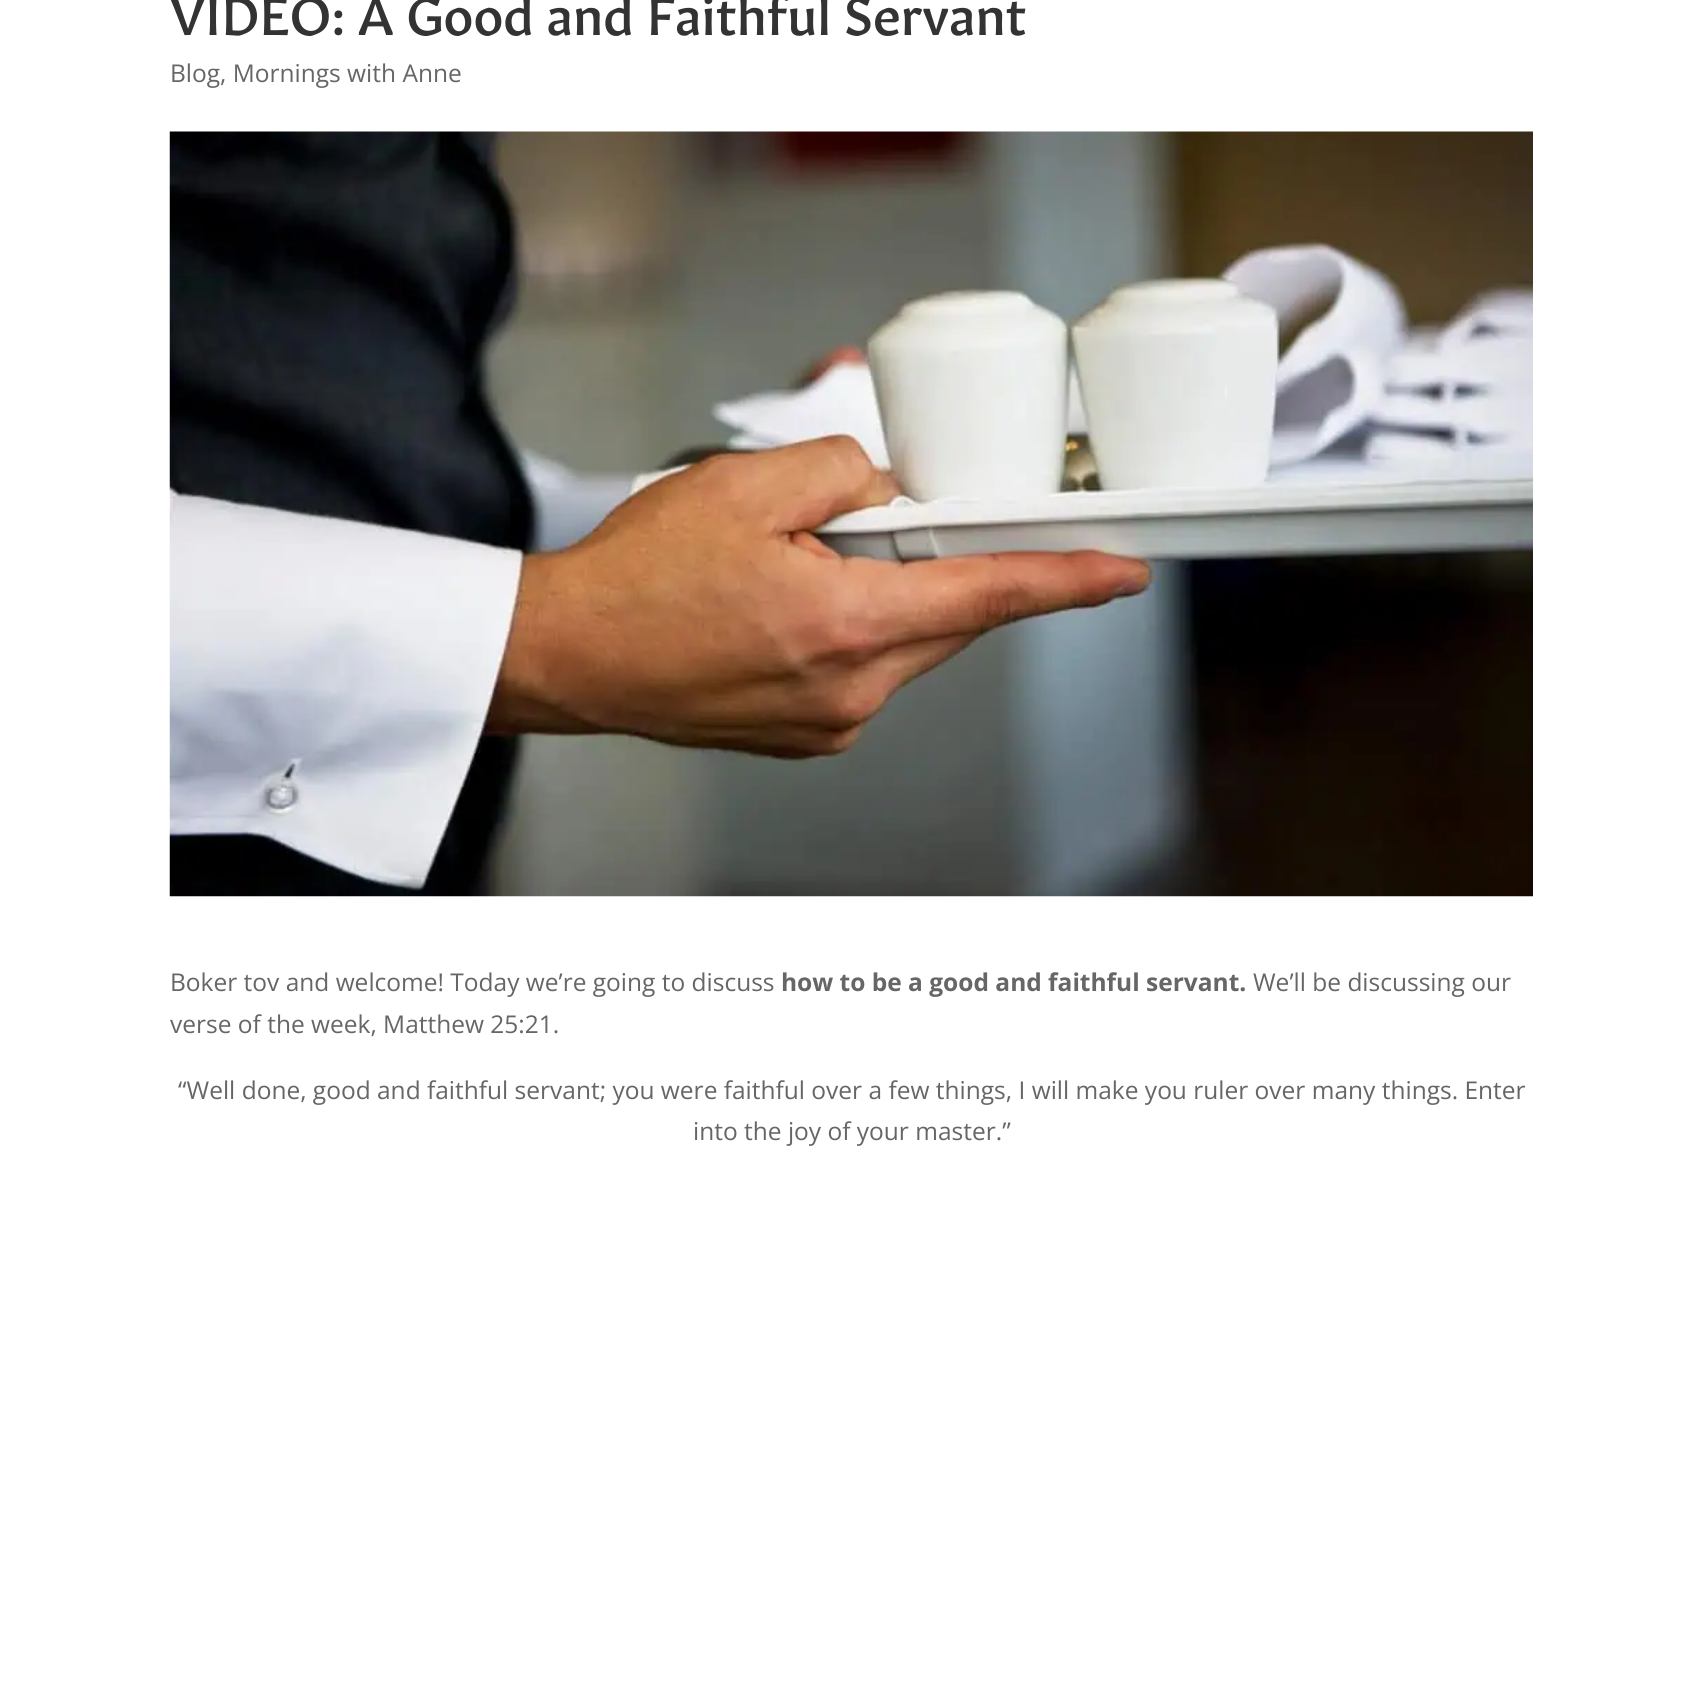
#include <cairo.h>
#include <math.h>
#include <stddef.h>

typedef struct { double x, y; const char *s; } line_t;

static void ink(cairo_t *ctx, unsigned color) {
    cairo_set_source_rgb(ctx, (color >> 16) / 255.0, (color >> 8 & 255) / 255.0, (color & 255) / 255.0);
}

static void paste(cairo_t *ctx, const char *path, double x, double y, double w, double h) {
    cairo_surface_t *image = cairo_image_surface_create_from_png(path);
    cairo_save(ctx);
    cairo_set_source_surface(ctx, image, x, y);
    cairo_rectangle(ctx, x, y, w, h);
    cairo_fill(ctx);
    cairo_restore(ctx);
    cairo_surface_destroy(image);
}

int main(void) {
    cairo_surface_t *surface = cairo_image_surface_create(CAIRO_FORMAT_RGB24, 1702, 1700);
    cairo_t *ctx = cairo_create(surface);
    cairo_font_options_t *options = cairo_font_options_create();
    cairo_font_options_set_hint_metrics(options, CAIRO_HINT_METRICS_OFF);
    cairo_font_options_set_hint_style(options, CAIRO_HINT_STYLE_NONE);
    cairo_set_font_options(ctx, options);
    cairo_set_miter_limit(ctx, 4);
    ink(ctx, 0xFFFFFF);
    cairo_paint(ctx);
    cairo_select_font_face(ctx, "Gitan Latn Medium", CAIRO_FONT_SLANT_NORMAL, CAIRO_FONT_WEIGHT_NORMAL);
    cairo_set_font_size(ctx, 52.5);
    ink(ctx, 0x333333);
    cairo_move_to(ctx, 170, 35);
    cairo_show_text(ctx, "VIDEO: A Good and Faithful Servant");
    cairo_select_font_face(ctx, "Open Sans", CAIRO_FONT_SLANT_NORMAL, CAIRO_FONT_WEIGHT_NORMAL);
    cairo_set_font_size(ctx, 24.5);
    ink(ctx, 0x666666);
    cairo_move_to(ctx, 170, 82);
    cairo_show_text(ctx, "Blog, Mornings with Anne");
    paste(ctx, "media/1.png", 169, 131, 1364, 766);
    cairo_move_to(ctx, 170, 991);
    cairo_show_text(ctx, "Boker tov and welcome! Today we’re going to discuss");
    cairo_select_font_face(ctx, "Open Sans", CAIRO_FONT_SLANT_NORMAL, CAIRO_FONT_WEIGHT_BOLD);
    cairo_move_to(ctx, 781, 991);
    cairo_show_text(ctx, "how to be a good and faithful servant.");
    cairo_select_font_face(ctx, "Open Sans", CAIRO_FONT_SLANT_NORMAL, CAIRO_FONT_WEIGHT_NORMAL);
    {
        static const line_t items[] = {
            {1253, 991, "We’ll be discussing our"},
            {170, 1033, "verse of the week, Matthew 25:21."},
            {178, 1099, "“Well done, good and faithful servant; you were faithful over a few things, I will make you ruler over many things. Enter"},
            {693, 1140, "into the joy of your master.”"},
        };
        for (size_t i = 0; i < sizeof items / sizeof *items; i++) {
            cairo_move_to(ctx, items[i].x, items[i].y);
            cairo_show_text(ctx, items[i].s);
        }
    }
    cairo_surface_write_to_png(surface, "image.png");
    cairo_font_options_destroy(options);
    cairo_destroy(ctx);
    cairo_surface_destroy(surface);
    return 0;
}
